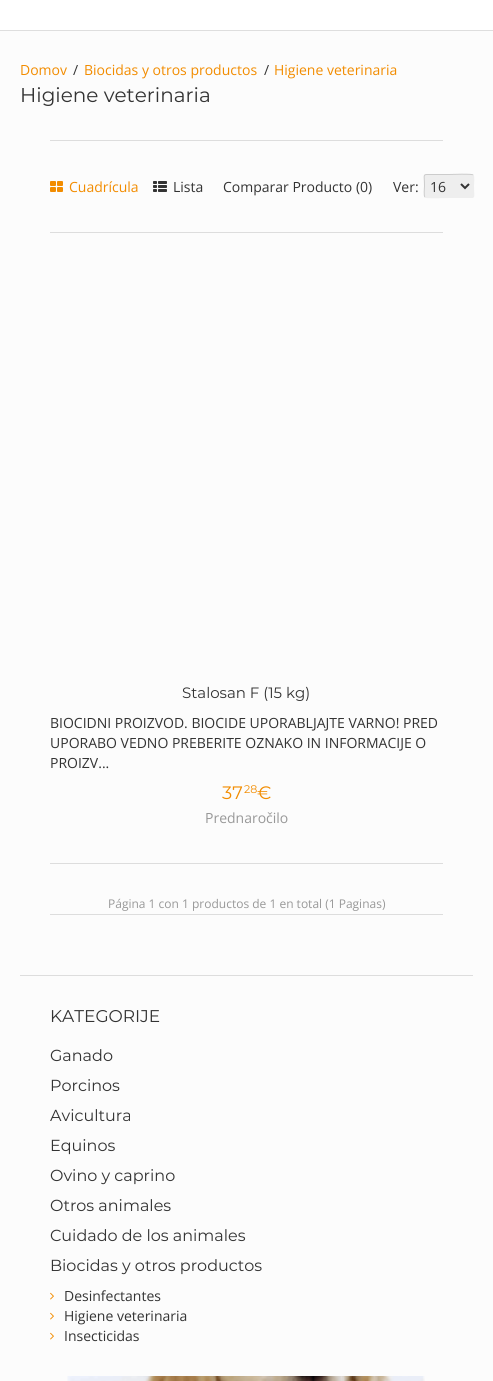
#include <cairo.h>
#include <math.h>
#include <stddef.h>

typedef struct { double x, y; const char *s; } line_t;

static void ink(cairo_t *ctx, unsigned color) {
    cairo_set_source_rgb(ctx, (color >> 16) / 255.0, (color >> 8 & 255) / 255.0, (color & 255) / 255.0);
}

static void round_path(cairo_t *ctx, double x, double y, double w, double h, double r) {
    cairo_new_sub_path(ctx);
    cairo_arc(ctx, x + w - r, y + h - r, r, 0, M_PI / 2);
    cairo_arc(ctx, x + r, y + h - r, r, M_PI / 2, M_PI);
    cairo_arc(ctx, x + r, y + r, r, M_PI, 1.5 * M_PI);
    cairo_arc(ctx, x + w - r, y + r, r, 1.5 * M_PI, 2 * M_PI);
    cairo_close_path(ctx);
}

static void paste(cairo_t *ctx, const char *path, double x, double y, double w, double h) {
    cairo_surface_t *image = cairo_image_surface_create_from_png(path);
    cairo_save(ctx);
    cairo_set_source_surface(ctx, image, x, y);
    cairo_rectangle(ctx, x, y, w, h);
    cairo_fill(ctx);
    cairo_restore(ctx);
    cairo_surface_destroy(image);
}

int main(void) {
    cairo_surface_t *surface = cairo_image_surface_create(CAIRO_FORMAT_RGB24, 493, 1381);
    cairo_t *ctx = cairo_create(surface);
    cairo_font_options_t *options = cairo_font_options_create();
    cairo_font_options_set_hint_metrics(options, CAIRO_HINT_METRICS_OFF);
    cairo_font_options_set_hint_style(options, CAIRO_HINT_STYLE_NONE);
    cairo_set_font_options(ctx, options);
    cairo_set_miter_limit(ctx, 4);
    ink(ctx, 0xFCFCFC);
    cairo_paint(ctx);
    ink(ctx, 0xDEDEDE);
    cairo_rectangle(ctx, 0, 30, 493, 1);
    cairo_fill(ctx);
    ink(ctx, 0xFFFFFF);
    cairo_rectangle(ctx, 0, 0, 493, 30);
    cairo_fill(ctx);
    cairo_select_font_face(ctx, "Open Sans", CAIRO_FONT_SLANT_NORMAL, CAIRO_FONT_WEIGHT_NORMAL);
    cairo_set_font_size(ctx, 14);
    ink(ctx, 0xF28C00);
    cairo_move_to(ctx, 20, 75);
    cairo_show_text(ctx, "Domov");
    ink(ctx, 0x333333);
    cairo_move_to(ctx, 73, 75);
    cairo_show_text(ctx, "/");
    ink(ctx, 0xF28C00);
    cairo_move_to(ctx, 84, 75);
    cairo_show_text(ctx, "Biocidas y otros productos");
    ink(ctx, 0x333333);
    cairo_move_to(ctx, 264, 75);
    cairo_show_text(ctx, "/");
    ink(ctx, 0xF28C00);
    cairo_move_to(ctx, 274, 75);
    cairo_show_text(ctx, "Higiene veterinaria");
    cairo_select_font_face(ctx, "Montserrat Thin", CAIRO_FONT_SLANT_NORMAL, CAIRO_FONT_WEIGHT_NORMAL);
    cairo_set_font_size(ctx, 20);
    ink(ctx, 0x333333);
    cairo_move_to(ctx, 20, 102);
    cairo_show_text(ctx, "Higiene veterinaria");
    ink(ctx, 0xDDDDDD);
    cairo_rectangle(ctx, 50, 140, 393, 1);
    cairo_fill(ctx);
    cairo_rectangle(ctx, 50, 232, 393, 1);
    cairo_fill(ctx);
    paste(ctx, "media/1.png", 50, 181, 13, 11);
    cairo_select_font_face(ctx, "Open Sans", CAIRO_FONT_SLANT_NORMAL, CAIRO_FONT_WEIGHT_NORMAL);
    cairo_set_font_size(ctx, 14);
    ink(ctx, 0xF28C00);
    cairo_move_to(ctx, 69, 192);
    cairo_show_text(ctx, "Cuadrícula");
    paste(ctx, "media/2.png", 153, 181, 14, 11);
    ink(ctx, 0x333333);
    {
        static const line_t items[] = {
            {173, 192, "Lista"},
            {223, 192, "Comparar Producto (0)"},
            {393, 192, "Ver:"},
        };
        for (size_t i = 0; i < sizeof items / sizeof *items; i++) {
            cairo_move_to(ctx, items[i].x, items[i].y);
            cairo_show_text(ctx, items[i].s);
        }
    }
    ink(ctx, 0xEEEEEE);
    round_path(ctx, 424, 174, 50, 24, 2);
    cairo_fill(ctx);
    cairo_new_path(ctx);
    cairo_move_to(ctx, 473, 175);
    cairo_curve_to(ctx, 474.5, 176, 473.5, 184, 473.5, 186);
    cairo_curve_to(ctx, 473.5, 199, 476.5, 197.5, 464.5, 197.5);
    cairo_line_to(ctx, 449, 197.5);
    cairo_curve_to(ctx, 446, 197.5, 426, 198.5, 425, 197);
    cairo_set_line_width(ctx, 1);
    cairo_stroke(ctx);
    cairo_new_path(ctx);
    cairo_move_to(ctx, 425, 197);
    cairo_curve_to(ctx, 423.5, 196, 424.5, 188, 424.5, 186);
    cairo_curve_to(ctx, 424.5, 173, 421.5, 174.5, 433.5, 174.5);
    cairo_line_to(ctx, 449, 174.5);
    cairo_curve_to(ctx, 452, 174.5, 472, 173.5, 473, 175);
    ink(ctx, 0xCCCCCC);
    cairo_stroke(ctx);
    cairo_new_path(ctx);
    cairo_move_to(ctx, 461, 184);
    cairo_line_to(ctx, 465, 188);
    cairo_line_to(ctx, 469, 184);
    ink(ctx, 0x333333);
    cairo_set_line_width(ctx, 2);
    cairo_stroke(ctx);
    cairo_move_to(ctx, 430, 192);
    cairo_show_text(ctx, "16");
    cairo_select_font_face(ctx, "Montserrat Thin", CAIRO_FONT_SLANT_NORMAL, CAIRO_FONT_WEIGHT_NORMAL);
    cairo_set_font_size(ctx, 15);
    cairo_move_to(ctx, 182, 698);
    cairo_show_text(ctx, "Stalosan F (15 kg)");
    cairo_select_font_face(ctx, "Open Sans", CAIRO_FONT_SLANT_NORMAL, CAIRO_FONT_WEIGHT_NORMAL);
    cairo_set_font_size(ctx, 14);
    {
        static const line_t items[] = {
            {50, 728, "BIOCIDNI PROIZVOD. BIOCIDE UPORABLJAJTE VARNO! PRED"},
            {50, 748, "UPORABO VEDNO PREBERITE OZNAKO IN INFORMACIJE O"},
            {50, 768, "PROIZV..."},
        };
        for (size_t i = 0; i < sizeof items / sizeof *items; i++) {
            cairo_move_to(ctx, items[i].x, items[i].y);
            cairo_show_text(ctx, items[i].s);
        }
    }
    cairo_select_font_face(ctx, "Montserrat Thin", CAIRO_FONT_SLANT_NORMAL, CAIRO_FONT_WEIGHT_NORMAL);
    cairo_set_font_size(ctx, 18);
    ink(ctx, 0xF28C00);
    cairo_move_to(ctx, 222, 799);
    cairo_show_text(ctx, "37");
    cairo_set_font_size(ctx, 11);
    cairo_move_to(ctx, 244, 793);
    cairo_show_text(ctx, "28");
    cairo_set_font_size(ctx, 18);
    cairo_move_to(ctx, 257, 799);
    cairo_show_text(ctx, "€");
    cairo_select_font_face(ctx, "Open Sans", CAIRO_FONT_SLANT_NORMAL, CAIRO_FONT_WEIGHT_NORMAL);
    cairo_set_font_size(ctx, 14);
    ink(ctx, 0x989898);
    cairo_move_to(ctx, 205, 823);
    cairo_show_text(ctx, "Prednaročilo");
    ink(ctx, 0xDDDDDD);
    cairo_rectangle(ctx, 50, 863, 393, 1);
    cairo_fill(ctx);
    cairo_set_font_size(ctx, 12);
    ink(ctx, 0x989898);
    cairo_move_to(ctx, 108, 908);
    cairo_show_text(ctx, "Página 1 con 1 productos de 1 en total (1 Paginas)");
    ink(ctx, 0xDDDDDD);
    cairo_rectangle(ctx, 50, 914, 393, 1);
    cairo_fill(ctx);
    cairo_rectangle(ctx, 20, 975, 453, 1);
    cairo_fill(ctx);
    cairo_select_font_face(ctx, "Montserrat Thin", CAIRO_FONT_SLANT_NORMAL, CAIRO_FONT_WEIGHT_NORMAL);
    cairo_set_font_size(ctx, 17);
    ink(ctx, 0x333333);
    cairo_move_to(ctx, 50, 1022);
    cairo_show_text(ctx, "KATEGORIJE");
    cairo_set_font_size(ctx, 16);
    {
        static const line_t items[] = {
            {50, 1061, "Ganado"},
            {50, 1091, "Porcinos"},
            {50, 1121, "Avicultura"},
            {50, 1151, "Equinos"},
            {50, 1181, "Ovino y caprino"},
            {50, 1211, "Otros animales"},
            {50, 1241, "Cuidado de los animales"},
            {50, 1271, "Biocidas y otros productos"},
        };
        for (size_t i = 0; i < sizeof items / sizeof *items; i++) {
            cairo_move_to(ctx, items[i].x, items[i].y);
            cairo_show_text(ctx, items[i].s);
        }
    }
    paste(ctx, "media/3.png", 50, 1292, 4, 8);
    cairo_select_font_face(ctx, "Open Sans", CAIRO_FONT_SLANT_NORMAL, CAIRO_FONT_WEIGHT_NORMAL);
    cairo_set_font_size(ctx, 14);
    cairo_move_to(ctx, 64, 1301);
    cairo_show_text(ctx, "Desinfectantes");
    paste(ctx, "media/3.png", 50, 1312, 4, 8);
    cairo_move_to(ctx, 64, 1321);
    cairo_show_text(ctx, "Higiene veterinaria");
    paste(ctx, "media/3.png", 50, 1332, 4, 8);
    cairo_move_to(ctx, 64, 1341);
    cairo_show_text(ctx, "Insecticidas");
    paste(ctx, "media/4.png", 67, 1376, 358, 5);
    cairo_surface_write_to_png(surface, "image.png");
    cairo_font_options_destroy(options);
    cairo_destroy(ctx);
    cairo_surface_destroy(surface);
    return 0;
}
